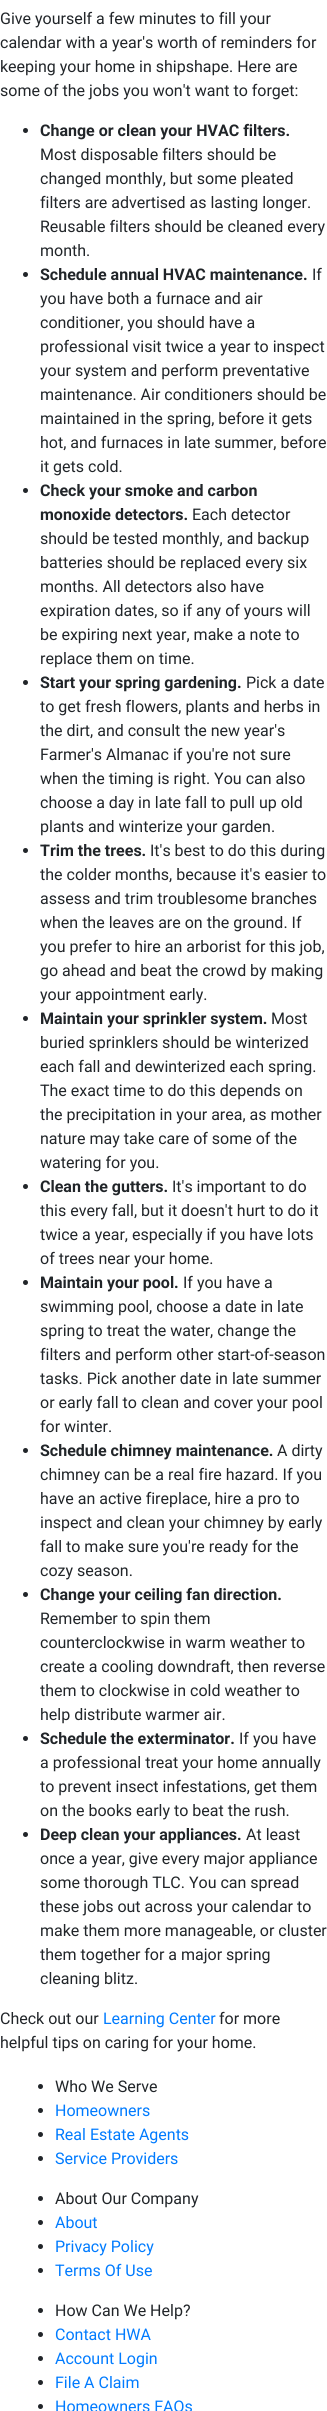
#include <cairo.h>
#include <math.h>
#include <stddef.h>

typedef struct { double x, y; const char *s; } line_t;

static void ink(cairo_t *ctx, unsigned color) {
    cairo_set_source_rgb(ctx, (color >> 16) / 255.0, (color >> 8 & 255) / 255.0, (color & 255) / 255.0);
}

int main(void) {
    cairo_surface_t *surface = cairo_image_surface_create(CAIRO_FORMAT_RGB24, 327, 2411);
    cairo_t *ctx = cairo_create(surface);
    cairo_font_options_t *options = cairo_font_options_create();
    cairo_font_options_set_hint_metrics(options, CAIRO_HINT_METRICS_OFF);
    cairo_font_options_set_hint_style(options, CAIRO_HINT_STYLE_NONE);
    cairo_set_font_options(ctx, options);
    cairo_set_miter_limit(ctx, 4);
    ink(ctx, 0xFFFFFF);
    cairo_paint(ctx);
    cairo_select_font_face(ctx, "Roboto", CAIRO_FONT_SLANT_NORMAL, CAIRO_FONT_WEIGHT_NORMAL);
    cairo_set_font_size(ctx, 16);
    ink(ctx, 0x212529);
    {
        static const line_t items[] = {
            {0, 24, "Give yourself a few minutes to fill your"},
            {0, 48, "calendar with a year's worth of reminders for"},
            {0, 72, "keeping your home in shipshape. Here are"},
            {0, 96, "some of the jobs you won't want to forget:"},
        };
        for (size_t i = 0; i < sizeof items / sizeof *items; i++) {
            cairo_move_to(ctx, items[i].x, items[i].y);
            cairo_show_text(ctx, items[i].s);
        }
    }
    cairo_new_path(ctx);
    cairo_arc(ctx, 25.5, 130.5, 2.5, 0, 2 * M_PI);
    cairo_fill(ctx);
    cairo_select_font_face(ctx, "Roboto", CAIRO_FONT_SLANT_NORMAL, CAIRO_FONT_WEIGHT_BOLD);
    cairo_move_to(ctx, 40, 136);
    cairo_show_text(ctx, "Change or clean your HVAC filters.");
    cairo_select_font_face(ctx, "Roboto", CAIRO_FONT_SLANT_NORMAL, CAIRO_FONT_WEIGHT_NORMAL);
    {
        static const line_t items[] = {
            {40, 160, "Most disposable filters should be"},
            {40, 184, "changed monthly, but some pleated"},
            {40, 208, "filters are advertised as lasting longer."},
            {40, 232, "Reusable filters should be cleaned every"},
            {40, 256, "month."},
        };
        for (size_t i = 0; i < sizeof items / sizeof *items; i++) {
            cairo_move_to(ctx, items[i].x, items[i].y);
            cairo_show_text(ctx, items[i].s);
        }
    }
    cairo_new_path(ctx);
    cairo_arc(ctx, 25.5, 274.5, 2.5, 0, 2 * M_PI);
    cairo_fill(ctx);
    cairo_select_font_face(ctx, "Roboto", CAIRO_FONT_SLANT_NORMAL, CAIRO_FONT_WEIGHT_BOLD);
    cairo_move_to(ctx, 40, 280);
    cairo_show_text(ctx, "Schedule annual HVAC maintenance.");
    cairo_select_font_face(ctx, "Roboto", CAIRO_FONT_SLANT_NORMAL, CAIRO_FONT_WEIGHT_NORMAL);
    {
        static const line_t items[] = {
            {312, 280, "If"},
            {40, 304, "you have both a furnace and air"},
            {40, 328, "conditioner, you should have a"},
            {40, 352, "professional visit twice a year to inspect"},
            {40, 376, "your system and perform preventative"},
            {40, 400, "maintenance. Air conditioners should be"},
            {40, 424, "maintained in the spring, before it gets"},
            {40, 448, "hot, and furnaces in late summer, before"},
            {40, 472, "it gets cold."},
        };
        for (size_t i = 0; i < sizeof items / sizeof *items; i++) {
            cairo_move_to(ctx, items[i].x, items[i].y);
            cairo_show_text(ctx, items[i].s);
        }
    }
    cairo_new_path(ctx);
    cairo_arc(ctx, 25.5, 490.5, 2.5, 0, 2 * M_PI);
    cairo_fill(ctx);
    cairo_select_font_face(ctx, "Roboto", CAIRO_FONT_SLANT_NORMAL, CAIRO_FONT_WEIGHT_BOLD);
    cairo_move_to(ctx, 40, 496);
    cairo_show_text(ctx, "Check your smoke and carbon");
    cairo_move_to(ctx, 40, 520);
    cairo_show_text(ctx, "monoxide detectors.");
    cairo_select_font_face(ctx, "Roboto", CAIRO_FONT_SLANT_NORMAL, CAIRO_FONT_WEIGHT_NORMAL);
    {
        static const line_t items[] = {
            {192, 520, "Each detector"},
            {40, 544, "should be tested monthly, and backup"},
            {40, 568, "batteries should be replaced every six"},
            {40, 592, "months. All detectors also have"},
            {40, 616, "expiration dates, so if any of yours will"},
            {40, 640, "be expiring next year, make a note to"},
            {40, 664, "replace them on time."},
        };
        for (size_t i = 0; i < sizeof items / sizeof *items; i++) {
            cairo_move_to(ctx, items[i].x, items[i].y);
            cairo_show_text(ctx, items[i].s);
        }
    }
    cairo_new_path(ctx);
    cairo_arc(ctx, 25.5, 682.5, 2.5, 0, 2 * M_PI);
    cairo_fill(ctx);
    cairo_select_font_face(ctx, "Roboto", CAIRO_FONT_SLANT_NORMAL, CAIRO_FONT_WEIGHT_BOLD);
    cairo_move_to(ctx, 40, 688);
    cairo_show_text(ctx, "Start your spring gardening.");
    cairo_select_font_face(ctx, "Roboto", CAIRO_FONT_SLANT_NORMAL, CAIRO_FONT_WEIGHT_NORMAL);
    {
        static const line_t items[] = {
            {246, 688, "Pick a date"},
            {40, 712, "to get fresh flowers, plants and herbs in"},
            {40, 736, "the dirt, and consult the new year's"},
            {40, 760, "Farmer's Almanac if you're not sure"},
            {40, 784, "when the timing is right. You can also"},
            {40, 808, "choose a day in late fall to pull up old"},
            {40, 832, "plants and winterize your garden."},
        };
        for (size_t i = 0; i < sizeof items / sizeof *items; i++) {
            cairo_move_to(ctx, items[i].x, items[i].y);
            cairo_show_text(ctx, items[i].s);
        }
    }
    cairo_new_path(ctx);
    cairo_arc(ctx, 25.5, 850.5, 2.5, 0, 2 * M_PI);
    cairo_fill(ctx);
    cairo_select_font_face(ctx, "Roboto", CAIRO_FONT_SLANT_NORMAL, CAIRO_FONT_WEIGHT_BOLD);
    cairo_move_to(ctx, 40, 856);
    cairo_show_text(ctx, "Trim the trees.");
    cairo_select_font_face(ctx, "Roboto", CAIRO_FONT_SLANT_NORMAL, CAIRO_FONT_WEIGHT_NORMAL);
    {
        static const line_t items[] = {
            {150, 856, "It's best to do this during"},
            {40, 880, "the colder months, because it's easier to"},
            {40, 904, "assess and trim troublesome branches"},
            {40, 928, "when the leaves are on the ground. If"},
            {40, 952, "you prefer to hire an arborist for this job,"},
            {40, 976, "go ahead and beat the crowd by making"},
            {40, 1000, "your appointment early."},
        };
        for (size_t i = 0; i < sizeof items / sizeof *items; i++) {
            cairo_move_to(ctx, items[i].x, items[i].y);
            cairo_show_text(ctx, items[i].s);
        }
    }
    cairo_new_path(ctx);
    cairo_arc(ctx, 25.5, 1018.5, 2.5, 0, 2 * M_PI);
    cairo_fill(ctx);
    cairo_select_font_face(ctx, "Roboto", CAIRO_FONT_SLANT_NORMAL, CAIRO_FONT_WEIGHT_BOLD);
    cairo_move_to(ctx, 40, 1024);
    cairo_show_text(ctx, "Maintain your sprinkler system.");
    cairo_select_font_face(ctx, "Roboto", CAIRO_FONT_SLANT_NORMAL, CAIRO_FONT_WEIGHT_NORMAL);
    {
        static const line_t items[] = {
            {271, 1024, "Most"},
            {40, 1048, "buried sprinklers should be winterized"},
            {40, 1072, "each fall and dewinterized each spring."},
            {40, 1096, "The exact time to do this depends on"},
            {40, 1120, "the precipitation in your area, as mother"},
            {40, 1144, "nature may take care of some of the"},
            {40, 1168, "watering for you."},
        };
        for (size_t i = 0; i < sizeof items / sizeof *items; i++) {
            cairo_move_to(ctx, items[i].x, items[i].y);
            cairo_show_text(ctx, items[i].s);
        }
    }
    cairo_new_path(ctx);
    cairo_arc(ctx, 25.5, 1186.5, 2.5, 0, 2 * M_PI);
    cairo_fill(ctx);
    cairo_select_font_face(ctx, "Roboto", CAIRO_FONT_SLANT_NORMAL, CAIRO_FONT_WEIGHT_BOLD);
    cairo_move_to(ctx, 40, 1192);
    cairo_show_text(ctx, "Clean the gutters.");
    cairo_select_font_face(ctx, "Roboto", CAIRO_FONT_SLANT_NORMAL, CAIRO_FONT_WEIGHT_NORMAL);
    {
        static const line_t items[] = {
            {172, 1192, "It's important to do"},
            {40, 1216, "this every fall, but it doesn't hurt to do it"},
            {40, 1240, "twice a year, especially if you have lots"},
            {40, 1264, "of trees near your home."},
        };
        for (size_t i = 0; i < sizeof items / sizeof *items; i++) {
            cairo_move_to(ctx, items[i].x, items[i].y);
            cairo_show_text(ctx, items[i].s);
        }
    }
    cairo_new_path(ctx);
    cairo_arc(ctx, 25.5, 1282.5, 2.5, 0, 2 * M_PI);
    cairo_fill(ctx);
    cairo_select_font_face(ctx, "Roboto", CAIRO_FONT_SLANT_NORMAL, CAIRO_FONT_WEIGHT_BOLD);
    cairo_move_to(ctx, 40, 1288);
    cairo_show_text(ctx, "Maintain your pool.");
    cairo_select_font_face(ctx, "Roboto", CAIRO_FONT_SLANT_NORMAL, CAIRO_FONT_WEIGHT_NORMAL);
    {
        static const line_t items[] = {
            {183, 1288, "If you have a"},
            {40, 1312, "swimming pool, choose a date in late"},
            {40, 1336, "spring to treat the water, change the"},
            {40, 1360, "filters and perform other start-of-season"},
            {40, 1384, "tasks. Pick another date in late summer"},
            {40, 1408, "or early fall to clean and cover your pool"},
            {40, 1432, "for winter."},
        };
        for (size_t i = 0; i < sizeof items / sizeof *items; i++) {
            cairo_move_to(ctx, items[i].x, items[i].y);
            cairo_show_text(ctx, items[i].s);
        }
    }
    cairo_new_path(ctx);
    cairo_arc(ctx, 25.5, 1450.5, 2.5, 0, 2 * M_PI);
    cairo_fill(ctx);
    cairo_select_font_face(ctx, "Roboto", CAIRO_FONT_SLANT_NORMAL, CAIRO_FONT_WEIGHT_BOLD);
    cairo_move_to(ctx, 40, 1456);
    cairo_show_text(ctx, "Schedule chimney maintenance.");
    cairo_select_font_face(ctx, "Roboto", CAIRO_FONT_SLANT_NORMAL, CAIRO_FONT_WEIGHT_NORMAL);
    {
        static const line_t items[] = {
            {277, 1456, "A dirty"},
            {40, 1480, "chimney can be a real fire hazard. If you"},
            {40, 1504, "have an active fireplace, hire a pro to"},
            {40, 1528, "inspect and clean your chimney by early"},
            {40, 1552, "fall to make sure you're ready for the"},
            {40, 1576, "cozy season."},
        };
        for (size_t i = 0; i < sizeof items / sizeof *items; i++) {
            cairo_move_to(ctx, items[i].x, items[i].y);
            cairo_show_text(ctx, items[i].s);
        }
    }
    cairo_new_path(ctx);
    cairo_arc(ctx, 25.5, 1594.5, 2.5, 0, 2 * M_PI);
    cairo_fill(ctx);
    cairo_select_font_face(ctx, "Roboto", CAIRO_FONT_SLANT_NORMAL, CAIRO_FONT_WEIGHT_BOLD);
    cairo_move_to(ctx, 40, 1600);
    cairo_show_text(ctx, "Change your ceiling fan direction.");
    cairo_select_font_face(ctx, "Roboto", CAIRO_FONT_SLANT_NORMAL, CAIRO_FONT_WEIGHT_NORMAL);
    {
        static const line_t items[] = {
            {40, 1624, "Remember to spin them"},
            {40, 1648, "counterclockwise in warm weather to"},
            {40, 1672, "create a cooling downdraft, then reverse"},
            {40, 1696, "them to clockwise in cold weather to"},
            {40, 1720, "help distribute warmer air."},
        };
        for (size_t i = 0; i < sizeof items / sizeof *items; i++) {
            cairo_move_to(ctx, items[i].x, items[i].y);
            cairo_show_text(ctx, items[i].s);
        }
    }
    cairo_new_path(ctx);
    cairo_arc(ctx, 25.5, 1738.5, 2.5, 0, 2 * M_PI);
    cairo_fill(ctx);
    cairo_select_font_face(ctx, "Roboto", CAIRO_FONT_SLANT_NORMAL, CAIRO_FONT_WEIGHT_BOLD);
    cairo_move_to(ctx, 40, 1744);
    cairo_show_text(ctx, "Schedule the exterminator.");
    cairo_select_font_face(ctx, "Roboto", CAIRO_FONT_SLANT_NORMAL, CAIRO_FONT_WEIGHT_NORMAL);
    {
        static const line_t items[] = {
            {239, 1744, "If you have"},
            {40, 1768, "a professional treat your home annually"},
            {40, 1792, "to prevent insect infestations, get them"},
            {40, 1816, "on the books early to beat the rush."},
        };
        for (size_t i = 0; i < sizeof items / sizeof *items; i++) {
            cairo_move_to(ctx, items[i].x, items[i].y);
            cairo_show_text(ctx, items[i].s);
        }
    }
    cairo_new_path(ctx);
    cairo_arc(ctx, 25.5, 1834.5, 2.5, 0, 2 * M_PI);
    cairo_fill(ctx);
    cairo_select_font_face(ctx, "Roboto", CAIRO_FONT_SLANT_NORMAL, CAIRO_FONT_WEIGHT_BOLD);
    cairo_move_to(ctx, 40, 1840);
    cairo_show_text(ctx, "Deep clean your appliances.");
    cairo_select_font_face(ctx, "Roboto", CAIRO_FONT_SLANT_NORMAL, CAIRO_FONT_WEIGHT_NORMAL);
    {
        static const line_t items[] = {
            {246, 1840, "At least"},
            {40, 1864, "once a year, give every major appliance"},
            {40, 1888, "some thorough TLC. You can spread"},
            {40, 1912, "these jobs out across your calendar to"},
            {40, 1936, "make them more manageable, or cluster"},
            {40, 1960, "them together for a major spring"},
            {40, 1984, "cleaning blitz."},
            {0, 2024, "Check out our"},
        };
        for (size_t i = 0; i < sizeof items / sizeof *items; i++) {
            cairo_move_to(ctx, items[i].x, items[i].y);
            cairo_show_text(ctx, items[i].s);
        }
    }
    ink(ctx, 0x007BFF);
    cairo_move_to(ctx, 103, 2024);
    cairo_show_text(ctx, "Learning Center");
    ink(ctx, 0x212529);
    cairo_move_to(ctx, 219, 2024);
    cairo_show_text(ctx, "for more");
    cairo_move_to(ctx, 0, 2048);
    cairo_show_text(ctx, "helpful tips on caring for your home.");
    cairo_new_path(ctx);
    cairo_arc(ctx, 40.5, 2086.5, 2.5, 0, 2 * M_PI);
    cairo_fill(ctx);
    cairo_move_to(ctx, 55, 2092);
    cairo_show_text(ctx, "Who We Serve");
    cairo_new_path(ctx);
    cairo_arc(ctx, 40.5, 2110.5, 2.5, 0, 2 * M_PI);
    cairo_fill(ctx);
    ink(ctx, 0x007BFF);
    cairo_move_to(ctx, 55, 2116);
    cairo_show_text(ctx, "Homeowners");
    ink(ctx, 0x212529);
    cairo_new_path(ctx);
    cairo_arc(ctx, 40.5, 2134.5, 2.5, 0, 2 * M_PI);
    cairo_fill(ctx);
    ink(ctx, 0x007BFF);
    cairo_move_to(ctx, 55, 2140);
    cairo_show_text(ctx, "Real Estate Agents");
    ink(ctx, 0x212529);
    cairo_new_path(ctx);
    cairo_arc(ctx, 40.5, 2158.5, 2.5, 0, 2 * M_PI);
    cairo_fill(ctx);
    ink(ctx, 0x007BFF);
    cairo_move_to(ctx, 55, 2164);
    cairo_show_text(ctx, "Service Providers");
    ink(ctx, 0x212529);
    cairo_new_path(ctx);
    cairo_arc(ctx, 40.5, 2198.5, 2.5, 0, 2 * M_PI);
    cairo_fill(ctx);
    cairo_move_to(ctx, 55, 2204);
    cairo_show_text(ctx, "About Our Company");
    cairo_new_path(ctx);
    cairo_arc(ctx, 40.5, 2222.5, 2.5, 0, 2 * M_PI);
    cairo_fill(ctx);
    ink(ctx, 0x007BFF);
    cairo_move_to(ctx, 55, 2228);
    cairo_show_text(ctx, "About");
    ink(ctx, 0x212529);
    cairo_new_path(ctx);
    cairo_arc(ctx, 40.5, 2246.5, 2.5, 0, 2 * M_PI);
    cairo_fill(ctx);
    ink(ctx, 0x007BFF);
    cairo_move_to(ctx, 55, 2252);
    cairo_show_text(ctx, "Privacy Policy");
    ink(ctx, 0x212529);
    cairo_new_path(ctx);
    cairo_arc(ctx, 40.5, 2270.5, 2.5, 0, 2 * M_PI);
    cairo_fill(ctx);
    ink(ctx, 0x007BFF);
    cairo_move_to(ctx, 55, 2276);
    cairo_show_text(ctx, "Terms Of Use");
    ink(ctx, 0x212529);
    cairo_new_path(ctx);
    cairo_arc(ctx, 40.5, 2310.5, 2.5, 0, 2 * M_PI);
    cairo_fill(ctx);
    cairo_move_to(ctx, 55, 2316);
    cairo_show_text(ctx, "How Can We Help?");
    cairo_new_path(ctx);
    cairo_arc(ctx, 40.5, 2334.5, 2.5, 0, 2 * M_PI);
    cairo_fill(ctx);
    ink(ctx, 0x007BFF);
    cairo_move_to(ctx, 55, 2340);
    cairo_show_text(ctx, "Contact HWA");
    ink(ctx, 0x212529);
    cairo_new_path(ctx);
    cairo_arc(ctx, 40.5, 2358.5, 2.5, 0, 2 * M_PI);
    cairo_fill(ctx);
    ink(ctx, 0x007BFF);
    cairo_move_to(ctx, 55, 2364);
    cairo_show_text(ctx, "Account Login");
    ink(ctx, 0x212529);
    cairo_new_path(ctx);
    cairo_arc(ctx, 40.5, 2382.5, 2.5, 0, 2 * M_PI);
    cairo_fill(ctx);
    ink(ctx, 0x007BFF);
    cairo_move_to(ctx, 55, 2388);
    cairo_show_text(ctx, "File A Claim");
    ink(ctx, 0x212529);
    cairo_new_path(ctx);
    cairo_arc(ctx, 40.5, 2406.5, 2.5, 0, 2 * M_PI);
    cairo_fill(ctx);
    ink(ctx, 0x007BFF);
    cairo_move_to(ctx, 55, 2412);
    cairo_show_text(ctx, "Homeowners FAQs");
    cairo_surface_write_to_png(surface, "image.png");
    cairo_font_options_destroy(options);
    cairo_destroy(ctx);
    cairo_surface_destroy(surface);
    return 0;
}
